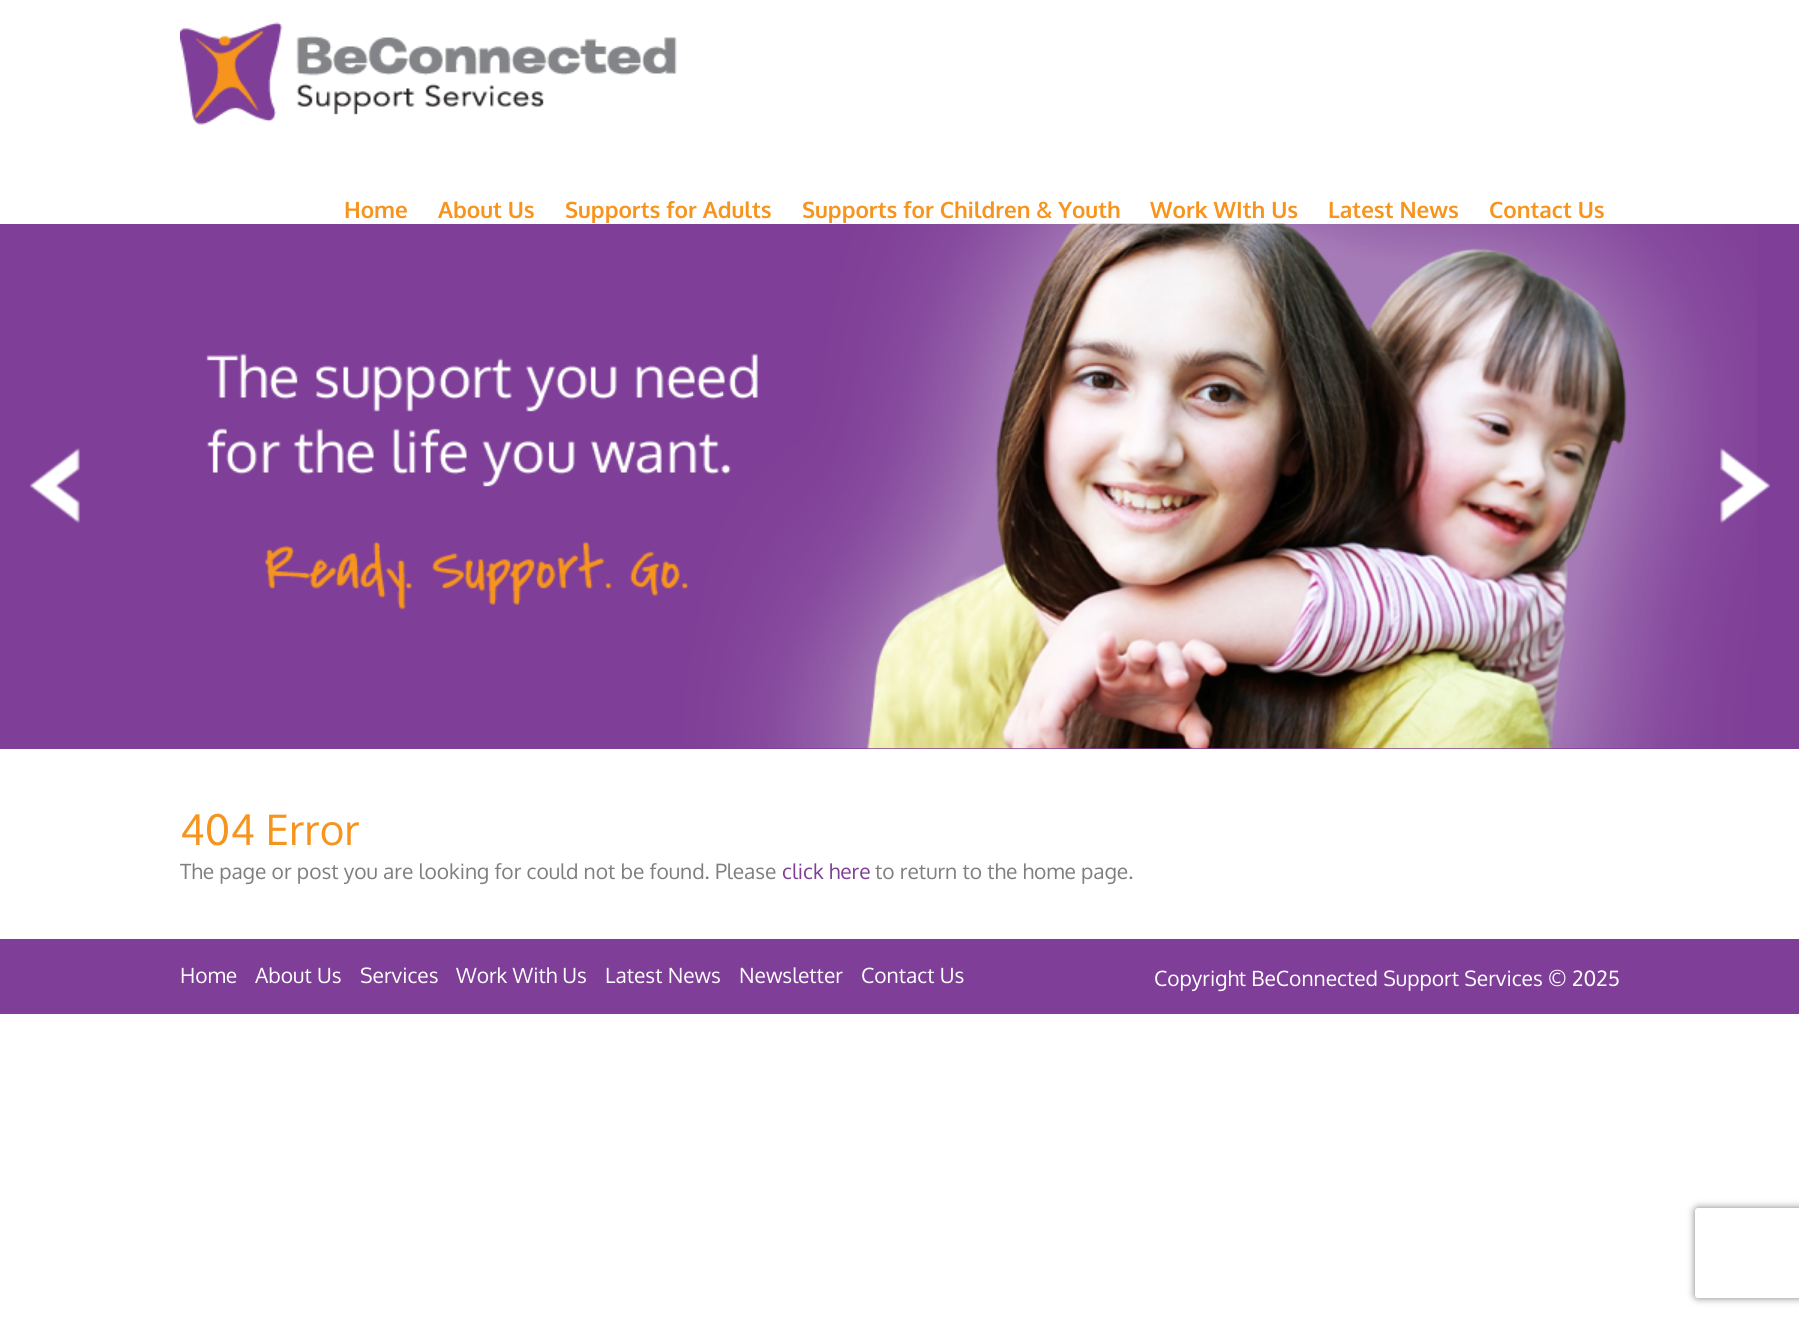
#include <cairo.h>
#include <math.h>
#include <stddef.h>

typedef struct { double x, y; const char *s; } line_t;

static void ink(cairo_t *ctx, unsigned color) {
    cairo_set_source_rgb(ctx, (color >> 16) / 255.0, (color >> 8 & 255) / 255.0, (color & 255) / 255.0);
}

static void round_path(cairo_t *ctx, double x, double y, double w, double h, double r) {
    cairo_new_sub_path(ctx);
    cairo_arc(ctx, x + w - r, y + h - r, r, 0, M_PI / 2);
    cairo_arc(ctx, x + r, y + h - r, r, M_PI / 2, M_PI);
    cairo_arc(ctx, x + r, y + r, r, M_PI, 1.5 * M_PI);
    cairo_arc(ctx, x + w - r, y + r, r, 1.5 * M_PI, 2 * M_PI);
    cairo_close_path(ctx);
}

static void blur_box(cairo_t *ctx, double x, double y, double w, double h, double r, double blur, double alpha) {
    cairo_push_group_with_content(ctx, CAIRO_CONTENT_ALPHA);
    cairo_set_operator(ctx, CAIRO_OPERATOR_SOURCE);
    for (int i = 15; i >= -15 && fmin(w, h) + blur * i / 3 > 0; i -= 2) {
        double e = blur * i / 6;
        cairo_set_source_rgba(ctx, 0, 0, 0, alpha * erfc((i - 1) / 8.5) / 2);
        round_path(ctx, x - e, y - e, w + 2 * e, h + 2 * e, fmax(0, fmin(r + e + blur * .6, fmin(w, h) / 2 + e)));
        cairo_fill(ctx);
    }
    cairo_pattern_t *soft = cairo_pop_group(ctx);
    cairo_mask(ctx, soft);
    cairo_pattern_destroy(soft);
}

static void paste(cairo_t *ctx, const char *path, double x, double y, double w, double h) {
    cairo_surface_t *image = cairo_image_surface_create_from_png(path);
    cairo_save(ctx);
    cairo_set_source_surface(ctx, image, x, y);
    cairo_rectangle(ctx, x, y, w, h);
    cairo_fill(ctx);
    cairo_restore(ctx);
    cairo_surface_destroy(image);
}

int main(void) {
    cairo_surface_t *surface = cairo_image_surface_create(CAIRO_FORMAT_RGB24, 1799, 1318);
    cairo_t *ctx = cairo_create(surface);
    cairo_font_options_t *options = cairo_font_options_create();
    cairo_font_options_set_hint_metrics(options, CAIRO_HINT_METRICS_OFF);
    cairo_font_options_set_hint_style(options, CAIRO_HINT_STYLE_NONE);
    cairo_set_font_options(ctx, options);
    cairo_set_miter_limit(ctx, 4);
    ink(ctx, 0xFFFFFF);
    cairo_paint(ctx);
    paste(ctx, "media/1.png", 180, 22, 497, 103);
    cairo_select_font_face(ctx, "Oxygen", CAIRO_FONT_SLANT_NORMAL, CAIRO_FONT_WEIGHT_BOLD);
    cairo_set_font_size(ctx, 22.5);
    ink(ctx, 0xF7941E);
    {
        static const line_t items[] = {
            {344, 218, "Home"},
            {438, 218, "About Us"},
            {565, 218, "Supports for Adults"},
            {802, 218, "Supports for Children & Youth"},
            {1150, 218, "Work WIth Us"},
            {1328, 218, "Latest News"},
            {1489, 218, "Contact Us"},
        };
        for (size_t i = 0; i < sizeof items / sizeof *items; i++) {
            cairo_move_to(ctx, items[i].x, items[i].y);
            cairo_show_text(ctx, items[i].s);
        }
    }
    ink(ctx, 0x7F3F98);
    cairo_rectangle(ctx, 0, 224, 1799, 525);
    cairo_fill(ctx);
    paste(ctx, "media/2.png", 30, 448, 50, 76);
    paste(ctx, "media/3.png", 206, 223, 1551, 526);
    paste(ctx, "media/4.png", 1720, 448, 50, 76);
    cairo_select_font_face(ctx, "Oxygen", CAIRO_FONT_SLANT_NORMAL, CAIRO_FONT_WEIGHT_NORMAL);
    cairo_set_font_size(ctx, 42);
    ink(ctx, 0xF7941E);
    cairo_move_to(ctx, 180, 845);
    cairo_show_text(ctx, "404 Error");
    cairo_set_font_size(ctx, 21);
    ink(ctx, 0x7F7F7F);
    cairo_move_to(ctx, 180, 879);
    cairo_show_text(ctx, "The page or post you are looking for could not be found. Please");
    ink(ctx, 0x7F3F98);
    cairo_move_to(ctx, 782, 879);
    cairo_show_text(ctx, "click here");
    ink(ctx, 0x7F7F7F);
    cairo_move_to(ctx, 875, 879);
    cairo_show_text(ctx, "to return to the home page.");
    ink(ctx, 0x7F3F98);
    cairo_rectangle(ctx, 0, 939, 1799, 75);
    cairo_fill(ctx);
    ink(ctx, 0xFFFFFF);
    {
        static const line_t items[] = {
            {180, 983, "Home"},
            {255, 983, "About Us"},
            {360, 983, "Services"},
            {456, 983, "Work With Us"},
            {605, 983, "Latest News"},
            {739, 983, "Newsletter"},
            {861, 983, "Contact Us"},
            {1154, 986, "Copyright BeConnected Support Services © 2025"},
        };
        for (size_t i = 0; i < sizeof items / sizeof *items; i++) {
            cairo_move_to(ctx, items[i].x, items[i].y);
            cairo_show_text(ctx, items[i].s);
        }
    }
    cairo_save(ctx);
    cairo_set_fill_rule(ctx, CAIRO_FILL_RULE_EVEN_ODD);
    cairo_new_path(ctx);
    cairo_move_to(ctx, 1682, 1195);
    cairo_line_to(ctx, 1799, 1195);
    cairo_line_to(ctx, 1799, 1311);
    cairo_line_to(ctx, 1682, 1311);
    cairo_close_path(ctx);
    cairo_move_to(ctx, 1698, 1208);
    cairo_line_to(ctx, 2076, 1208);
    cairo_curve_to(ctx, 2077.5, 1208, 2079, 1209.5, 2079, 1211);
    cairo_line_to(ctx, 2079, 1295);
    cairo_curve_to(ctx, 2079, 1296.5, 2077.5, 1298, 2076, 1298);
    cairo_line_to(ctx, 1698, 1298);
    cairo_curve_to(ctx, 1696.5, 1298, 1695, 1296.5, 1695, 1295);
    cairo_line_to(ctx, 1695, 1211);
    cairo_curve_to(ctx, 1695, 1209.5, 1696.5, 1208, 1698, 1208);
    cairo_close_path(ctx);
    cairo_clip(ctx);
    ink(ctx, 0x808080);
    blur_box(ctx, 1695, 1208, 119, 90, 3, 4, 1);
    cairo_restore(ctx);
    cairo_surface_write_to_png(surface, "image.png");
    cairo_font_options_destroy(options);
    cairo_destroy(ctx);
    cairo_surface_destroy(surface);
    return 0;
}
